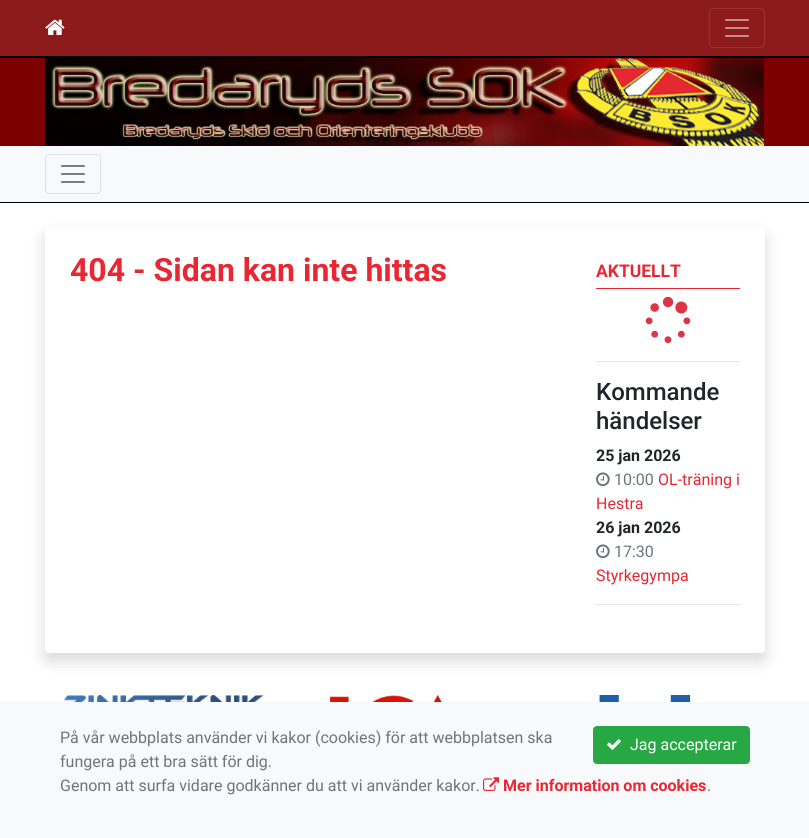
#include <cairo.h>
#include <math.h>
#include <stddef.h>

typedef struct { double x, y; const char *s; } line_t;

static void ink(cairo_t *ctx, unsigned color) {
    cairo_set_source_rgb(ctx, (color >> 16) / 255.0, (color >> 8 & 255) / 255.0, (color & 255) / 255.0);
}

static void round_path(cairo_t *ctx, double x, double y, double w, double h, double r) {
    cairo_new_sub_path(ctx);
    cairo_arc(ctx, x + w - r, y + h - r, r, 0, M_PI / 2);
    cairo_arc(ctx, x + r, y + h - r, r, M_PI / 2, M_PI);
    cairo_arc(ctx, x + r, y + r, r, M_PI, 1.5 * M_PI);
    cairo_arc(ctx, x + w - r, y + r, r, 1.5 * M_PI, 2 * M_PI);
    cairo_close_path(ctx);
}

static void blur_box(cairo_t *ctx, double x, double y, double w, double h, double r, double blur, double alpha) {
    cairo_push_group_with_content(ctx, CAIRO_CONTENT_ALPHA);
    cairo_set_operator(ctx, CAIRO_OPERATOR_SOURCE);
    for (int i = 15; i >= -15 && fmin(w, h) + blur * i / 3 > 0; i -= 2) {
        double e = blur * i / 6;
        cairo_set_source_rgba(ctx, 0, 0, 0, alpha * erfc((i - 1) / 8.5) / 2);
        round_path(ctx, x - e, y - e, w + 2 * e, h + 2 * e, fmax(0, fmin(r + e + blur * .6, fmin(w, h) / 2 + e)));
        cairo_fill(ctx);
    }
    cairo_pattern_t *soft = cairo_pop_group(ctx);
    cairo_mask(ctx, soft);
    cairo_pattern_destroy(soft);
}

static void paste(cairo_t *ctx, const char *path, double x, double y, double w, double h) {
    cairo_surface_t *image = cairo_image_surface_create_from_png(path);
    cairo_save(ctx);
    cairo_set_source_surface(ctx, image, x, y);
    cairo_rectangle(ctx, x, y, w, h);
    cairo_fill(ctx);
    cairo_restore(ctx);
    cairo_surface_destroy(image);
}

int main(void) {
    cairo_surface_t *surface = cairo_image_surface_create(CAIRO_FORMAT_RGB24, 809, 838);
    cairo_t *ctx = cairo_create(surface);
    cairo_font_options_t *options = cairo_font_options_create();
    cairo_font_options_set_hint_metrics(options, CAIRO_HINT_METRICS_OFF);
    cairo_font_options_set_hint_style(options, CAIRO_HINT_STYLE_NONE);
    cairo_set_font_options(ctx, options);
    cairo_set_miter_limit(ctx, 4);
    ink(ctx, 0xFFFFFF);
    cairo_paint(ctx);
    ink(ctx, 0x8C1A1A);
    cairo_rectangle(ctx, 0, 0, 809, 56);
    cairo_fill(ctx);
    ink(ctx, 0x000000);
    cairo_rectangle(ctx, 0, 56, 809, 2);
    cairo_fill(ctx);
    paste(ctx, "media/1.png", 45, 19, 20, 16);
    round_path(ctx, 709.5, 8.5, 55, 39, 3.5);
    ink(ctx, 0x983131);
    cairo_set_line_width(ctx, 1);
    cairo_stroke(ctx);
    paste(ctx, "media/2.png", 725, 19, 24, 18);
    ink(ctx, 0x7C0000);
    cairo_rectangle(ctx, 0, 58, 809, 88);
    cairo_fill(ctx);
    paste(ctx, "media/3.png", 45, 58, 719, 88);
    ink(ctx, 0xF8F9FA);
    cairo_rectangle(ctx, 0, 146, 809, 56);
    cairo_fill(ctx);
    round_path(ctx, 45.5, 154.5, 55, 39, 3.5);
    ink(ctx, 0xDFE0E1);
    cairo_stroke(ctx);
    paste(ctx, "media/4.png", 61, 165, 24, 18);
    ink(ctx, 0x000000);
    cairo_rectangle(ctx, 0, 202, 809, 1);
    cairo_fill(ctx);
    ink(ctx, 0x000000);
    blur_box(ctx, 45, 235, 720, 426, 4, 8, 0.15);
    ink(ctx, 0xFFFFFF);
    round_path(ctx, 45, 227, 720, 426, 4);
    cairo_fill(ctx);
    cairo_select_font_face(ctx, "Roboto", CAIRO_FONT_SLANT_NORMAL, CAIRO_FONT_WEIGHT_BOLD);
    cairo_set_font_size(ctx, 32);
    ink(ctx, 0xE82732);
    cairo_move_to(ctx, 70, 281);
    cairo_show_text(ctx, "404 - Sidan kan inte hittas");
    cairo_rectangle(ctx, 596, 288, 144, 1);
    cairo_fill(ctx);
    cairo_set_font_size(ctx, 17.5);
    cairo_move_to(ctx, 596, 277);
    cairo_show_text(ctx, "AKTUELLT");
    paste(ctx, "media/5.png", 645, 296, 46, 48);
    ink(ctx, 0xE6E6E6);
    cairo_rectangle(ctx, 596, 361, 144, 1);
    cairo_fill(ctx);
    cairo_select_font_face(ctx, "Roboto Medium", CAIRO_FONT_SLANT_NORMAL, CAIRO_FONT_WEIGHT_NORMAL);
    cairo_set_font_size(ctx, 24);
    ink(ctx, 0x212529);
    cairo_move_to(ctx, 596, 400);
    cairo_show_text(ctx, "Kommande");
    cairo_move_to(ctx, 596, 429);
    cairo_show_text(ctx, "händelser");
    cairo_select_font_face(ctx, "Roboto", CAIRO_FONT_SLANT_NORMAL, CAIRO_FONT_WEIGHT_BOLD);
    cairo_set_font_size(ctx, 16);
    cairo_move_to(ctx, 596, 461);
    cairo_show_text(ctx, "25 jan 2026");
    paste(ctx, "media/6.png", 596, 472, 14, 15);
    cairo_select_font_face(ctx, "Roboto", CAIRO_FONT_SLANT_NORMAL, CAIRO_FONT_WEIGHT_NORMAL);
    ink(ctx, 0x6C757D);
    cairo_move_to(ctx, 614, 485);
    cairo_show_text(ctx, "10:00");
    ink(ctx, 0xE82732);
    cairo_move_to(ctx, 658, 485);
    cairo_show_text(ctx, "OL-träning i");
    cairo_move_to(ctx, 596, 509);
    cairo_show_text(ctx, "Hestra");
    cairo_select_font_face(ctx, "Roboto", CAIRO_FONT_SLANT_NORMAL, CAIRO_FONT_WEIGHT_BOLD);
    ink(ctx, 0x212529);
    cairo_move_to(ctx, 596, 533);
    cairo_show_text(ctx, "26 jan 2026");
    paste(ctx, "media/6.png", 596, 544, 14, 15);
    cairo_select_font_face(ctx, "Roboto", CAIRO_FONT_SLANT_NORMAL, CAIRO_FONT_WEIGHT_NORMAL);
    ink(ctx, 0x6C757D);
    cairo_move_to(ctx, 614, 557);
    cairo_show_text(ctx, "17:30");
    ink(ctx, 0xE82732);
    cairo_move_to(ctx, 596, 581);
    cairo_show_text(ctx, "Styrkegympa");
    ink(ctx, 0xE6E6E6);
    cairo_rectangle(ctx, 596, 604, 144, 1);
    cairo_fill(ctx);
    paste(ctx, "media/7.png", 64, 695, 200, 7);
    paste(ctx, "media/8.png", 330, 695, 112, 7);
    paste(ctx, "media/9.png", 599, 695, 92, 7);
    ink(ctx, 0xF8F9FA);
    cairo_rectangle(ctx, 0, 702, 809, 136);
    cairo_fill(ctx);
    ink(ctx, 0x6C757D);
    {
        static const line_t items[] = {
            {60, 743, "På vår webbplats använder vi kakor (cookies) för att webbplatsen ska"},
            {60, 767, "fungera på ett bra sätt för dig."},
            {60, 791, "Genom att surfa vidare godkänner du att vi använder kakor."},
        };
        for (size_t i = 0; i < sizeof items / sizeof *items; i++) {
            cairo_move_to(ctx, items[i].x, items[i].y);
            cairo_show_text(ctx, items[i].s);
        }
    }
    paste(ctx, "media/10.png", 483, 777, 16, 14);
    cairo_select_font_face(ctx, "Roboto", CAIRO_FONT_SLANT_NORMAL, CAIRO_FONT_WEIGHT_BOLD);
    ink(ctx, 0xE82732);
    cairo_move_to(ctx, 503, 791);
    cairo_show_text(ctx, "Mer information om cookies");
    cairo_select_font_face(ctx, "Roboto", CAIRO_FONT_SLANT_NORMAL, CAIRO_FONT_WEIGHT_NORMAL);
    ink(ctx, 0x6C757D);
    cairo_move_to(ctx, 707, 791);
    cairo_show_text(ctx, ".");
    ink(ctx, 0x28A745);
    round_path(ctx, 593.5, 726.5, 156, 37, 3.5);
    cairo_fill_preserve(ctx);
    cairo_stroke(ctx);
    paste(ctx, "media/11.png", 607, 739, 14, 11);
    ink(ctx, 0xFFFFFF);
    cairo_move_to(ctx, 630, 750);
    cairo_show_text(ctx, "Jag accepterar");
    cairo_surface_write_to_png(surface, "image.png");
    cairo_font_options_destroy(options);
    cairo_destroy(ctx);
    cairo_surface_destroy(surface);
    return 0;
}
